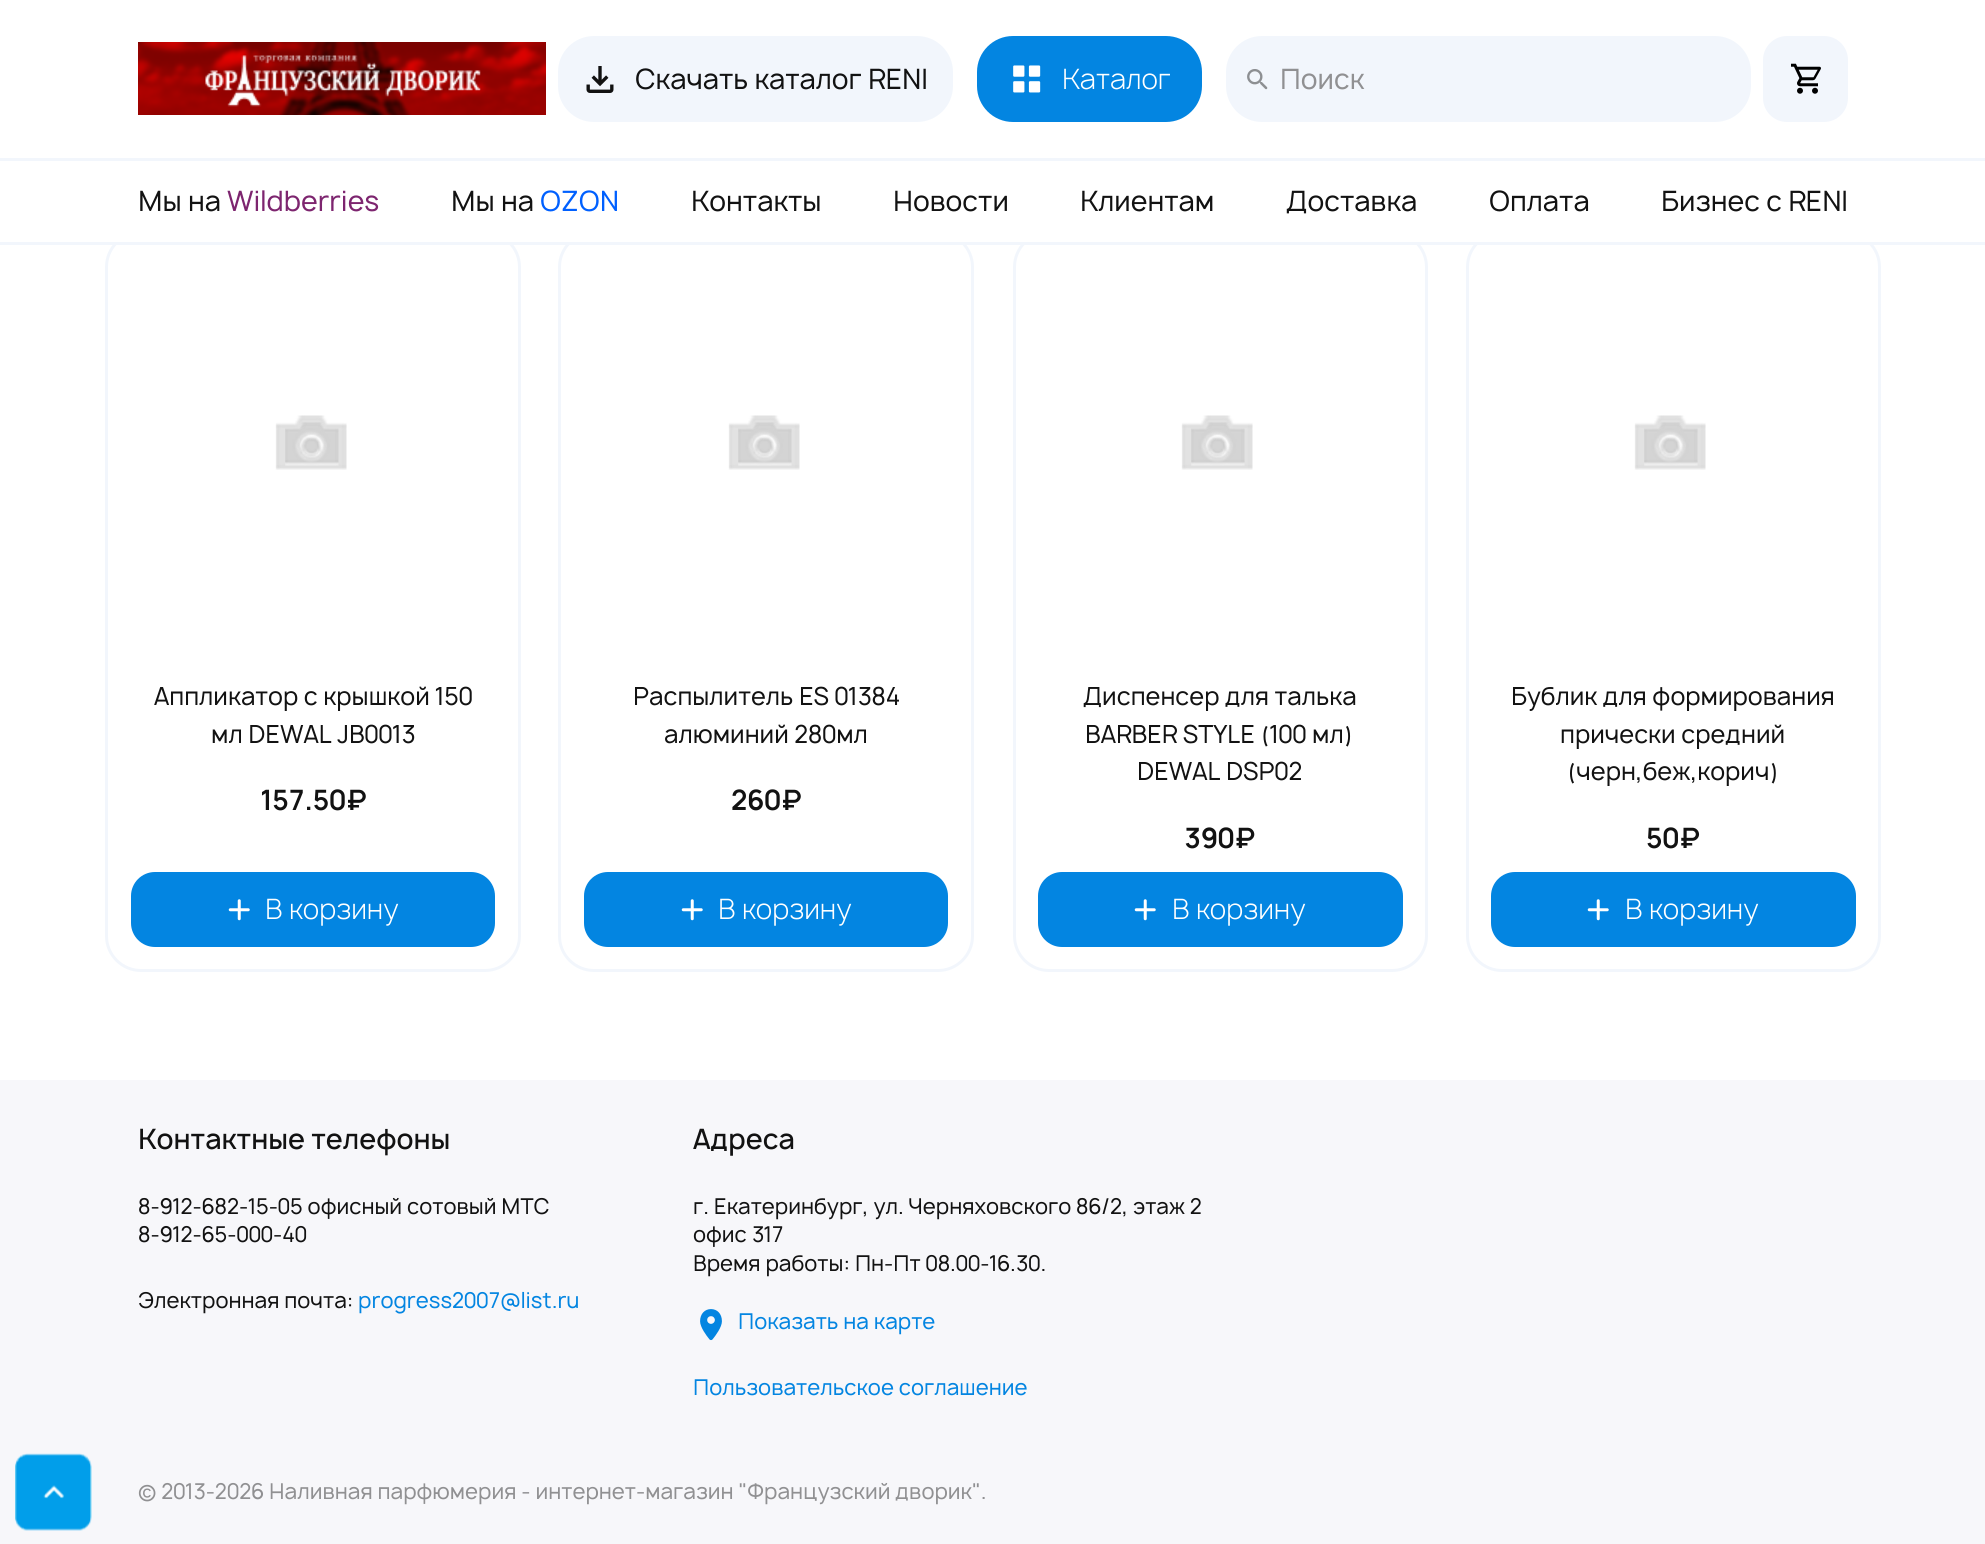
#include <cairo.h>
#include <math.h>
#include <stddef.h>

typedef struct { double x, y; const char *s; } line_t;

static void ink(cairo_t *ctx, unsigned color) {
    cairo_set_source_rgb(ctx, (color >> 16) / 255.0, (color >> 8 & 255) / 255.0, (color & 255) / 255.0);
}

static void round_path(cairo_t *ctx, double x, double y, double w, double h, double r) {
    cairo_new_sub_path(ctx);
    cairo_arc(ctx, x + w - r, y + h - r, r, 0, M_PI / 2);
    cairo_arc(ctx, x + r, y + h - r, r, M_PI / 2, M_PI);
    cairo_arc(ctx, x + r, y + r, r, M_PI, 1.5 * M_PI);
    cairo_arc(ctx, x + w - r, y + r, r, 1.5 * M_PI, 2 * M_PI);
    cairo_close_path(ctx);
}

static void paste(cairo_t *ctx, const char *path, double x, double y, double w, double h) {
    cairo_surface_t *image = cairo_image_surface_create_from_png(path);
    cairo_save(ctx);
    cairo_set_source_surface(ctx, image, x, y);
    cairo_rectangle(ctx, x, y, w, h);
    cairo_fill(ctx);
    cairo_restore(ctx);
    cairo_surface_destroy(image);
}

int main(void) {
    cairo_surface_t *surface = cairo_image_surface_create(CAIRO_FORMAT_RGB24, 1985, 1544);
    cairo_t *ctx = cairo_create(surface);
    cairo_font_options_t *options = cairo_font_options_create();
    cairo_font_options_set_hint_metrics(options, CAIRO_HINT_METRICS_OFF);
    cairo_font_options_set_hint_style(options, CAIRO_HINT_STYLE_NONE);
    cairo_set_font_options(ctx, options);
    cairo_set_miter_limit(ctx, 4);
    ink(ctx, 0xFFFFFF);
    cairo_paint(ctx);
    round_path(ctx, 106.5, 232.5, 413, 738, 34.5);
    ink(ctx, 0xF2F6FC);
    cairo_set_line_width(ctx, 3);
    cairo_stroke(ctx);
    round_path(ctx, 559.5, 232.5, 413, 738, 34.5);
    cairo_stroke(ctx);
    round_path(ctx, 1014.5, 232.5, 412, 738, 34.5);
    cairo_stroke(ctx);
    round_path(ctx, 1467.5, 232.5, 412, 738, 34.5);
    cairo_stroke(ctx);
    ink(ctx, 0xFFFFFF);
    cairo_rectangle(ctx, 115, 231, 1756, 11);
    cairo_fill(ctx);
    paste(ctx, "media/1.png", 138, 42, 408, 73);
    ink(ctx, 0xF2F6FC);
    round_path(ctx, 558, 36, 395, 86, 36);
    cairo_fill(ctx);
    paste(ctx, "media/2.png", 586, 66, 28, 27);
    cairo_select_font_face(ctx, "Manrope", CAIRO_FONT_SLANT_NORMAL, CAIRO_FONT_WEIGHT_NORMAL);
    cairo_set_font_size(ctx, 27);
    ink(ctx, 0x121212);
    cairo_move_to(ctx, 635, 89);
    cairo_show_text(ctx, "Скачать каталог RENI");
    ink(ctx, 0x0385E1);
    round_path(ctx, 977, 36, 225, 86, 36);
    cairo_fill(ctx);
    paste(ctx, "media/3.png", 1013, 65, 28, 28);
    cairo_select_font_face(ctx, "Manrope Light", CAIRO_FONT_SLANT_NORMAL, CAIRO_FONT_WEIGHT_NORMAL);
    ink(ctx, 0xFFFFFF);
    cairo_move_to(ctx, 1062, 89);
    cairo_show_text(ctx, "Каталог");
    ink(ctx, 0xF2F6FC);
    round_path(ctx, 1226, 36, 525, 86, 36);
    cairo_fill(ctx);
    paste(ctx, "media/4.png", 1247, 69, 21, 21);
    cairo_select_font_face(ctx, "Manrope", CAIRO_FONT_SLANT_NORMAL, CAIRO_FONT_WEIGHT_NORMAL);
    ink(ctx, 0x909092);
    cairo_move_to(ctx, 1280, 89);
    cairo_show_text(ctx, "Поиск");
    ink(ctx, 0xF2F6FC);
    round_path(ctx, 1763, 36, 85, 86, 24);
    cairo_fill(ctx);
    paste(ctx, "media/5.png", 1791, 63, 30, 31);
    cairo_rectangle(ctx, 0, 158, 1985, 3);
    cairo_fill(ctx);
    cairo_rectangle(ctx, 0, 242, 1985, 3);
    cairo_fill(ctx);
    ink(ctx, 0x121212);
    cairo_move_to(ctx, 138, 211);
    cairo_show_text(ctx, "Мы на");
    ink(ctx, 0x7D256F);
    cairo_move_to(ctx, 227, 211);
    cairo_show_text(ctx, "Wildberries");
    ink(ctx, 0x121212);
    cairo_move_to(ctx, 451, 211);
    cairo_show_text(ctx, "Мы на");
    ink(ctx, 0x0060FF);
    cairo_move_to(ctx, 540, 211);
    cairo_show_text(ctx, "OZON");
    ink(ctx, 0x121212);
    {
        static const line_t items[] = {
            {691, 211, "Контакты"},
            {893, 211, "Новости"},
            {1080, 211, "Клиентам"},
            {1286, 211, "Доставка"},
            {1489, 211, "Оплата"},
            {1661, 211, "Бизнес с RENI"},
        };
        for (size_t i = 0; i < sizeof items / sizeof *items; i++) {
            cairo_move_to(ctx, items[i].x, items[i].y);
            cairo_show_text(ctx, items[i].s);
        }
    }
    paste(ctx, "media/6.png", 275, 415, 72, 55);
    paste(ctx, "media/7.png", 285, 422, 54, 44);
    cairo_set_font_size(ctx, 24);
    cairo_move_to(ctx, 154, 705);
    cairo_show_text(ctx, "Аппликатор с крышкой 150");
    cairo_move_to(ctx, 211, 743);
    cairo_show_text(ctx, "мл DEWAL JB0013");
    cairo_select_font_face(ctx, "Manrope SemiBold", CAIRO_FONT_SLANT_NORMAL, CAIRO_FONT_WEIGHT_NORMAL);
    cairo_set_font_size(ctx, 27);
    cairo_move_to(ctx, 261, 810);
    cairo_show_text(ctx, "157.50₽");
    ink(ctx, 0x0385E1);
    round_path(ctx, 131, 872, 364, 75, 24);
    cairo_fill(ctx);
    paste(ctx, "media/8.png", 228, 899, 22, 22);
    cairo_select_font_face(ctx, "Manrope Light", CAIRO_FONT_SLANT_NORMAL, CAIRO_FONT_WEIGHT_NORMAL);
    ink(ctx, 0xFFFFFF);
    cairo_move_to(ctx, 265, 919);
    cairo_show_text(ctx, "В корзину");
    paste(ctx, "media/6.png", 728, 415, 72, 55);
    paste(ctx, "media/9.png", 738, 422, 54, 44);
    cairo_select_font_face(ctx, "Manrope", CAIRO_FONT_SLANT_NORMAL, CAIRO_FONT_WEIGHT_NORMAL);
    cairo_set_font_size(ctx, 24);
    ink(ctx, 0x121212);
    cairo_move_to(ctx, 633, 705);
    cairo_show_text(ctx, "Распылитель ES 01384");
    cairo_move_to(ctx, 664, 743);
    cairo_show_text(ctx, "алюминий 280мл");
    cairo_select_font_face(ctx, "Manrope SemiBold", CAIRO_FONT_SLANT_NORMAL, CAIRO_FONT_WEIGHT_NORMAL);
    cairo_set_font_size(ctx, 27);
    cairo_move_to(ctx, 731, 810);
    cairo_show_text(ctx, "260₽");
    ink(ctx, 0x0385E1);
    round_path(ctx, 584, 872, 364, 75, 24);
    cairo_fill(ctx);
    paste(ctx, "media/8.png", 681, 899, 22, 22);
    cairo_select_font_face(ctx, "Manrope Light", CAIRO_FONT_SLANT_NORMAL, CAIRO_FONT_WEIGHT_NORMAL);
    ink(ctx, 0xFFFFFF);
    cairo_move_to(ctx, 718, 919);
    cairo_show_text(ctx, "В корзину");
    paste(ctx, "media/6.png", 1181, 415, 72, 55);
    paste(ctx, "media/9.png", 1191, 422, 54, 44);
    cairo_select_font_face(ctx, "Manrope", CAIRO_FONT_SLANT_NORMAL, CAIRO_FONT_WEIGHT_NORMAL);
    cairo_set_font_size(ctx, 24);
    ink(ctx, 0x121212);
    {
        static const line_t items[] = {
            {1083, 705, "Диспенсер для талька"},
            {1085, 743, "BARBER STYLE (100 мл)"},
            {1137, 780, "DEWAL DSP02"},
        };
        for (size_t i = 0; i < sizeof items / sizeof *items; i++) {
            cairo_move_to(ctx, items[i].x, items[i].y);
            cairo_show_text(ctx, items[i].s);
        }
    }
    cairo_select_font_face(ctx, "Manrope SemiBold", CAIRO_FONT_SLANT_NORMAL, CAIRO_FONT_WEIGHT_NORMAL);
    cairo_set_font_size(ctx, 27);
    cairo_move_to(ctx, 1184, 848);
    cairo_show_text(ctx, "390₽");
    ink(ctx, 0x0385E1);
    round_path(ctx, 1038, 872, 365, 75, 24);
    cairo_fill(ctx);
    paste(ctx, "media/8.png", 1134, 899, 22, 22);
    cairo_select_font_face(ctx, "Manrope Light", CAIRO_FONT_SLANT_NORMAL, CAIRO_FONT_WEIGHT_NORMAL);
    ink(ctx, 0xFFFFFF);
    cairo_move_to(ctx, 1172, 919);
    cairo_show_text(ctx, "В корзину");
    paste(ctx, "media/6.png", 1634, 415, 72, 55);
    paste(ctx, "media/9.png", 1644, 422, 54, 44);
    cairo_select_font_face(ctx, "Manrope", CAIRO_FONT_SLANT_NORMAL, CAIRO_FONT_WEIGHT_NORMAL);
    cairo_set_font_size(ctx, 24);
    ink(ctx, 0x121212);
    {
        static const line_t items[] = {
            {1511, 705, "Бублик для формирования"},
            {1560, 743, "прически средний"},
            {1567, 780, "(черн,беж,корич)"},
        };
        for (size_t i = 0; i < sizeof items / sizeof *items; i++) {
            cairo_move_to(ctx, items[i].x, items[i].y);
            cairo_show_text(ctx, items[i].s);
        }
    }
    cairo_select_font_face(ctx, "Manrope SemiBold", CAIRO_FONT_SLANT_NORMAL, CAIRO_FONT_WEIGHT_NORMAL);
    cairo_set_font_size(ctx, 27);
    cairo_move_to(ctx, 1646, 848);
    cairo_show_text(ctx, "50₽");
    ink(ctx, 0x0385E1);
    round_path(ctx, 1491, 872, 365, 75, 24);
    cairo_fill(ctx);
    paste(ctx, "media/8.png", 1587, 899, 22, 22);
    cairo_select_font_face(ctx, "Manrope Light", CAIRO_FONT_SLANT_NORMAL, CAIRO_FONT_WEIGHT_NORMAL);
    ink(ctx, 0xFFFFFF);
    cairo_move_to(ctx, 1625, 919);
    cairo_show_text(ctx, "В корзину");
    ink(ctx, 0xF7F7FA);
    cairo_rectangle(ctx, 0, 1080, 1985, 464);
    cairo_fill(ctx);
    paste(ctx, "media/10.png", 15, 1453, 77, 78);
    cairo_select_font_face(ctx, "Manrope Medium", CAIRO_FONT_SLANT_NORMAL, CAIRO_FONT_WEIGHT_NORMAL);
    ink(ctx, 0x121212);
    cairo_move_to(ctx, 138, 1149);
    cairo_show_text(ctx, "Контактные телефоны");
    cairo_select_font_face(ctx, "Manrope", CAIRO_FONT_SLANT_NORMAL, CAIRO_FONT_WEIGHT_NORMAL);
    cairo_set_font_size(ctx, 21);
    {
        static const line_t items[] = {
            {138, 1214, "8-912-682-15-05 офисный сотовый МТС"},
            {138, 1242, "8-912-65-000-40"},
            {138, 1308, "Электронная почта:"},
        };
        for (size_t i = 0; i < sizeof items / sizeof *items; i++) {
            cairo_move_to(ctx, items[i].x, items[i].y);
            cairo_show_text(ctx, items[i].s);
        }
    }
    ink(ctx, 0x0385E1);
    cairo_move_to(ctx, 358, 1308);
    cairo_show_text(ctx, "progress2007@list.ru");
    cairo_select_font_face(ctx, "Manrope Medium", CAIRO_FONT_SLANT_NORMAL, CAIRO_FONT_WEIGHT_NORMAL);
    cairo_set_font_size(ctx, 27);
    ink(ctx, 0x121212);
    cairo_move_to(ctx, 693, 1149);
    cairo_show_text(ctx, "Адреса");
    cairo_select_font_face(ctx, "Manrope", CAIRO_FONT_SLANT_NORMAL, CAIRO_FONT_WEIGHT_NORMAL);
    cairo_set_font_size(ctx, 21);
    {
        static const line_t items[] = {
            {693, 1214, "г. Екатеринбург, ул. Черняховского 86/2, этаж 2"},
            {693, 1242, "офис 317"},
            {693, 1271, "Время работы: Пн-Пт 08.00-16.30."},
        };
        for (size_t i = 0; i < sizeof items / sizeof *items; i++) {
            cairo_move_to(ctx, items[i].x, items[i].y);
            cairo_show_text(ctx, items[i].s);
        }
    }
    paste(ctx, "media/11.png", 700, 1309, 22, 32);
    ink(ctx, 0x0385E1);
    cairo_move_to(ctx, 738, 1329);
    cairo_show_text(ctx, "Показать на карте");
    cairo_move_to(ctx, 693, 1395);
    cairo_show_text(ctx, "Пользовательское соглашение");
    ink(ctx, 0x909092);
    cairo_move_to(ctx, 138, 1499);
    cairo_show_text(ctx, "© 2013-2026 Наливная парфюмерия - интернет-магазин \"Французский дворик\".");
    cairo_surface_write_to_png(surface, "image.png");
    cairo_font_options_destroy(options);
    cairo_destroy(ctx);
    cairo_surface_destroy(surface);
    return 0;
}
